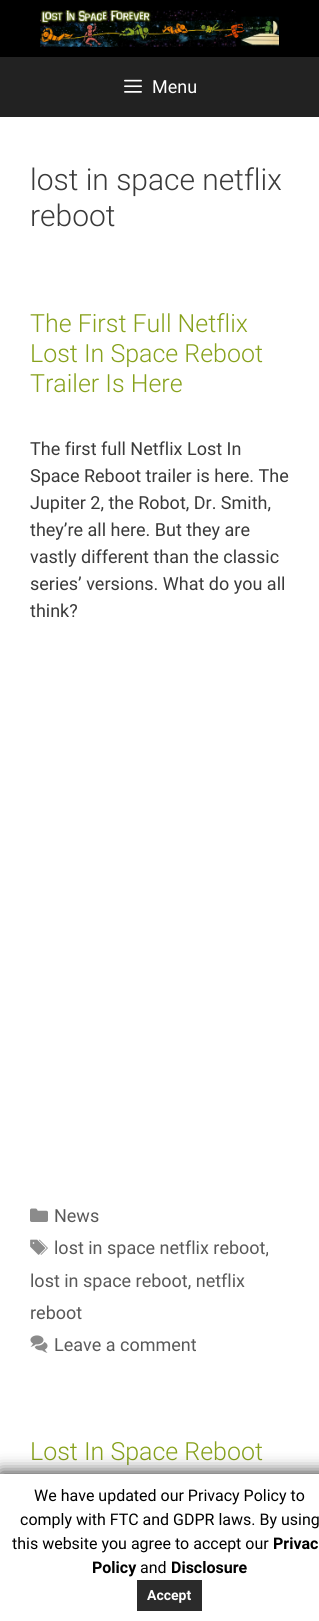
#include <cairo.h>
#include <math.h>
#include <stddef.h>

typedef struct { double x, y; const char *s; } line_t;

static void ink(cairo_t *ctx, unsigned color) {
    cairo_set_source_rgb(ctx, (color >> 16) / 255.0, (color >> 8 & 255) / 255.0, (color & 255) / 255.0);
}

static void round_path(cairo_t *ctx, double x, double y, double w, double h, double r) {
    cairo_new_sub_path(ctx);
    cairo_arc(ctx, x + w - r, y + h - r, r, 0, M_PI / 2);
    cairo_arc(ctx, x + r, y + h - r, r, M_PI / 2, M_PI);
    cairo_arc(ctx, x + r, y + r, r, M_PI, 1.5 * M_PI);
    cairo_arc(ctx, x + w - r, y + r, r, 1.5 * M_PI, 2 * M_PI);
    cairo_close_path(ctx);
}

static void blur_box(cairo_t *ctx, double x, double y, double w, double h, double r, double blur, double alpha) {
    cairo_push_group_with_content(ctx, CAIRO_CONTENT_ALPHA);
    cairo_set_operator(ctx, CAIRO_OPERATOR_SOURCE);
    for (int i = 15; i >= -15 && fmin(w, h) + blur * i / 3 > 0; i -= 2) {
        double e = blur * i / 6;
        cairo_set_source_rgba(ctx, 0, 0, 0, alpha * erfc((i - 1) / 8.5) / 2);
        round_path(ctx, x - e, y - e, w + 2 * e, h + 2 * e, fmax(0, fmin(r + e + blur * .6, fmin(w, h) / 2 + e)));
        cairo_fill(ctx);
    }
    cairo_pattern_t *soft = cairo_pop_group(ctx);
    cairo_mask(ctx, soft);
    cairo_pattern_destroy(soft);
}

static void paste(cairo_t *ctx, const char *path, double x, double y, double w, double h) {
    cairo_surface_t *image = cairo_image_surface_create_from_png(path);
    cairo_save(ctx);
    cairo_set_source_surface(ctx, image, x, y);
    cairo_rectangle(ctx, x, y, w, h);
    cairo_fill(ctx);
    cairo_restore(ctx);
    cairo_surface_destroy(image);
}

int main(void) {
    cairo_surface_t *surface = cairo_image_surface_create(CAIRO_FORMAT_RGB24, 319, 1621);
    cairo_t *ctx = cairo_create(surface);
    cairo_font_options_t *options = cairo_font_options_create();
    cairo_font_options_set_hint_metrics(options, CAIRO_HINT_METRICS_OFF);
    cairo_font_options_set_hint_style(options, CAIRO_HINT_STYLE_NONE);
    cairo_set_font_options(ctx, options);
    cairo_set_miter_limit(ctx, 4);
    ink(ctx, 0xFFFFFF);
    cairo_paint(ctx);
    ink(ctx, 0x000000);
    cairo_rectangle(ctx, 0, 0, 319, 57);
    cairo_fill(ctx);
    paste(ctx, "media/1.png", 40, 10, 239, 37);
    ink(ctx, 0x222222);
    cairo_rectangle(ctx, 0, 57, 319, 60);
    cairo_fill(ctx);
    paste(ctx, "media/2.png", 124, 79, 18, 14);
    cairo_select_font_face(ctx, "Roboto", CAIRO_FONT_SLANT_NORMAL, CAIRO_FONT_WEIGHT_NORMAL);
    cairo_set_font_size(ctx, 18);
    ink(ctx, 0xFFFFFF);
    cairo_move_to(ctx, 152, 93);
    cairo_show_text(ctx, "Menu");
    cairo_select_font_face(ctx, "Roboto Light", CAIRO_FONT_SLANT_NORMAL, CAIRO_FONT_WEIGHT_NORMAL);
    cairo_set_font_size(ctx, 30);
    ink(ctx, 0x3A3A3A);
    cairo_move_to(ctx, 30, 190);
    cairo_show_text(ctx, "lost in space netflix");
    cairo_move_to(ctx, 30, 226);
    cairo_show_text(ctx, "reboot");
    cairo_set_font_size(ctx, 25);
    ink(ctx, 0x87A11B);
    {
        static const line_t items[] = {
            {30, 332, "The First Full Netflix"},
            {30, 362, "Lost In Space Reboot"},
            {30, 392, "Trailer Is Here"},
        };
        for (size_t i = 0; i < sizeof items / sizeof *items; i++) {
            cairo_move_to(ctx, items[i].x, items[i].y);
            cairo_show_text(ctx, items[i].s);
        }
    }
    cairo_select_font_face(ctx, "Roboto", CAIRO_FONT_SLANT_NORMAL, CAIRO_FONT_WEIGHT_NORMAL);
    cairo_set_font_size(ctx, 18);
    ink(ctx, 0x3A3A3A);
    {
        static const line_t items[] = {
            {30, 455, "The first full Netflix Lost In"},
            {30, 482, "Space Reboot trailer is here. The"},
            {30, 509, "Jupiter 2, the Robot, Dr. Smith,"},
            {30, 536, "they’re all here. But they are"},
            {30, 563, "vastly different than the classic"},
            {30, 590, "series’ versions. What do you all"},
            {30, 617, "think?"},
        };
        for (size_t i = 0; i < sizeof items / sizeof *items; i++) {
            cairo_move_to(ctx, items[i].x, items[i].y);
            cairo_show_text(ctx, items[i].s);
        }
    }
    paste(ctx, "media/3.png", 30, 1208, 18, 14);
    ink(ctx, 0x595959);
    cairo_move_to(ctx, 54, 1222);
    cairo_show_text(ctx, "News");
    paste(ctx, "media/4.png", 30, 1239, 18, 16);
    {
        static const line_t items[] = {
            {54, 1254, "lost in space netflix reboot,"},
            {30, 1287, "lost in space reboot, netflix"},
            {30, 1319, "reboot"},
        };
        for (size_t i = 0; i < sizeof items / sizeof *items; i++) {
            cairo_move_to(ctx, items[i].x, items[i].y);
            cairo_show_text(ctx, items[i].s);
        }
    }
    paste(ctx, "media/5.png", 30, 1335, 18, 18);
    cairo_move_to(ctx, 54, 1351);
    cairo_show_text(ctx, "Leave a comment");
    cairo_select_font_face(ctx, "Roboto Light", CAIRO_FONT_SLANT_NORMAL, CAIRO_FONT_WEIGHT_NORMAL);
    cairo_set_font_size(ctx, 25);
    ink(ctx, 0x87A11B);
    cairo_move_to(ctx, 30, 1460);
    cairo_show_text(ctx, "Lost In Space Reboot");
    ink(ctx, 0x000000);
    blur_box(ctx, 0, 1472, 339, 147, 0, 8.5, 0.75);
    ink(ctx, 0xFFFFFF);
    cairo_rectangle(ctx, 0, 1474, 319, 147);
    cairo_fill(ctx);
    cairo_select_font_face(ctx, "Roboto", CAIRO_FONT_SLANT_NORMAL, CAIRO_FONT_WEIGHT_NORMAL);
    cairo_set_font_size(ctx, 16);
    ink(ctx, 0x000000);
    {
        static const line_t items[] = {
            {34, 1501, "We have updated our Privacy Policy to"},
            {20, 1525, "comply with FTC and GDPR laws. By using"},
            {12, 1549, "this website you agree to accept our"},
        };
        for (size_t i = 0; i < sizeof items / sizeof *items; i++) {
            cairo_move_to(ctx, items[i].x, items[i].y);
            cairo_show_text(ctx, items[i].s);
        }
    }
    cairo_select_font_face(ctx, "Roboto", CAIRO_FONT_SLANT_NORMAL, CAIRO_FONT_WEIGHT_BOLD);
    cairo_move_to(ctx, 273, 1549);
    cairo_show_text(ctx, "Privac");
    cairo_move_to(ctx, 92, 1573);
    cairo_show_text(ctx, "Policy");
    cairo_select_font_face(ctx, "Roboto", CAIRO_FONT_SLANT_NORMAL, CAIRO_FONT_WEIGHT_NORMAL);
    cairo_move_to(ctx, 140, 1573);
    cairo_show_text(ctx, "and");
    cairo_select_font_face(ctx, "Roboto", CAIRO_FONT_SLANT_NORMAL, CAIRO_FONT_WEIGHT_BOLD);
    cairo_move_to(ctx, 171, 1573);
    cairo_show_text(ctx, "Disclosure");
    ink(ctx, 0x2B2B2B);
    cairo_rectangle(ctx, 137, 1580, 65, 31);
    cairo_fill(ctx);
    cairo_set_font_size(ctx, 14);
    ink(ctx, 0xFFFFFF);
    cairo_move_to(ctx, 147, 1600);
    cairo_show_text(ctx, "Accept");
    cairo_surface_write_to_png(surface, "image.png");
    cairo_font_options_destroy(options);
    cairo_destroy(ctx);
    cairo_surface_destroy(surface);
    return 0;
}
